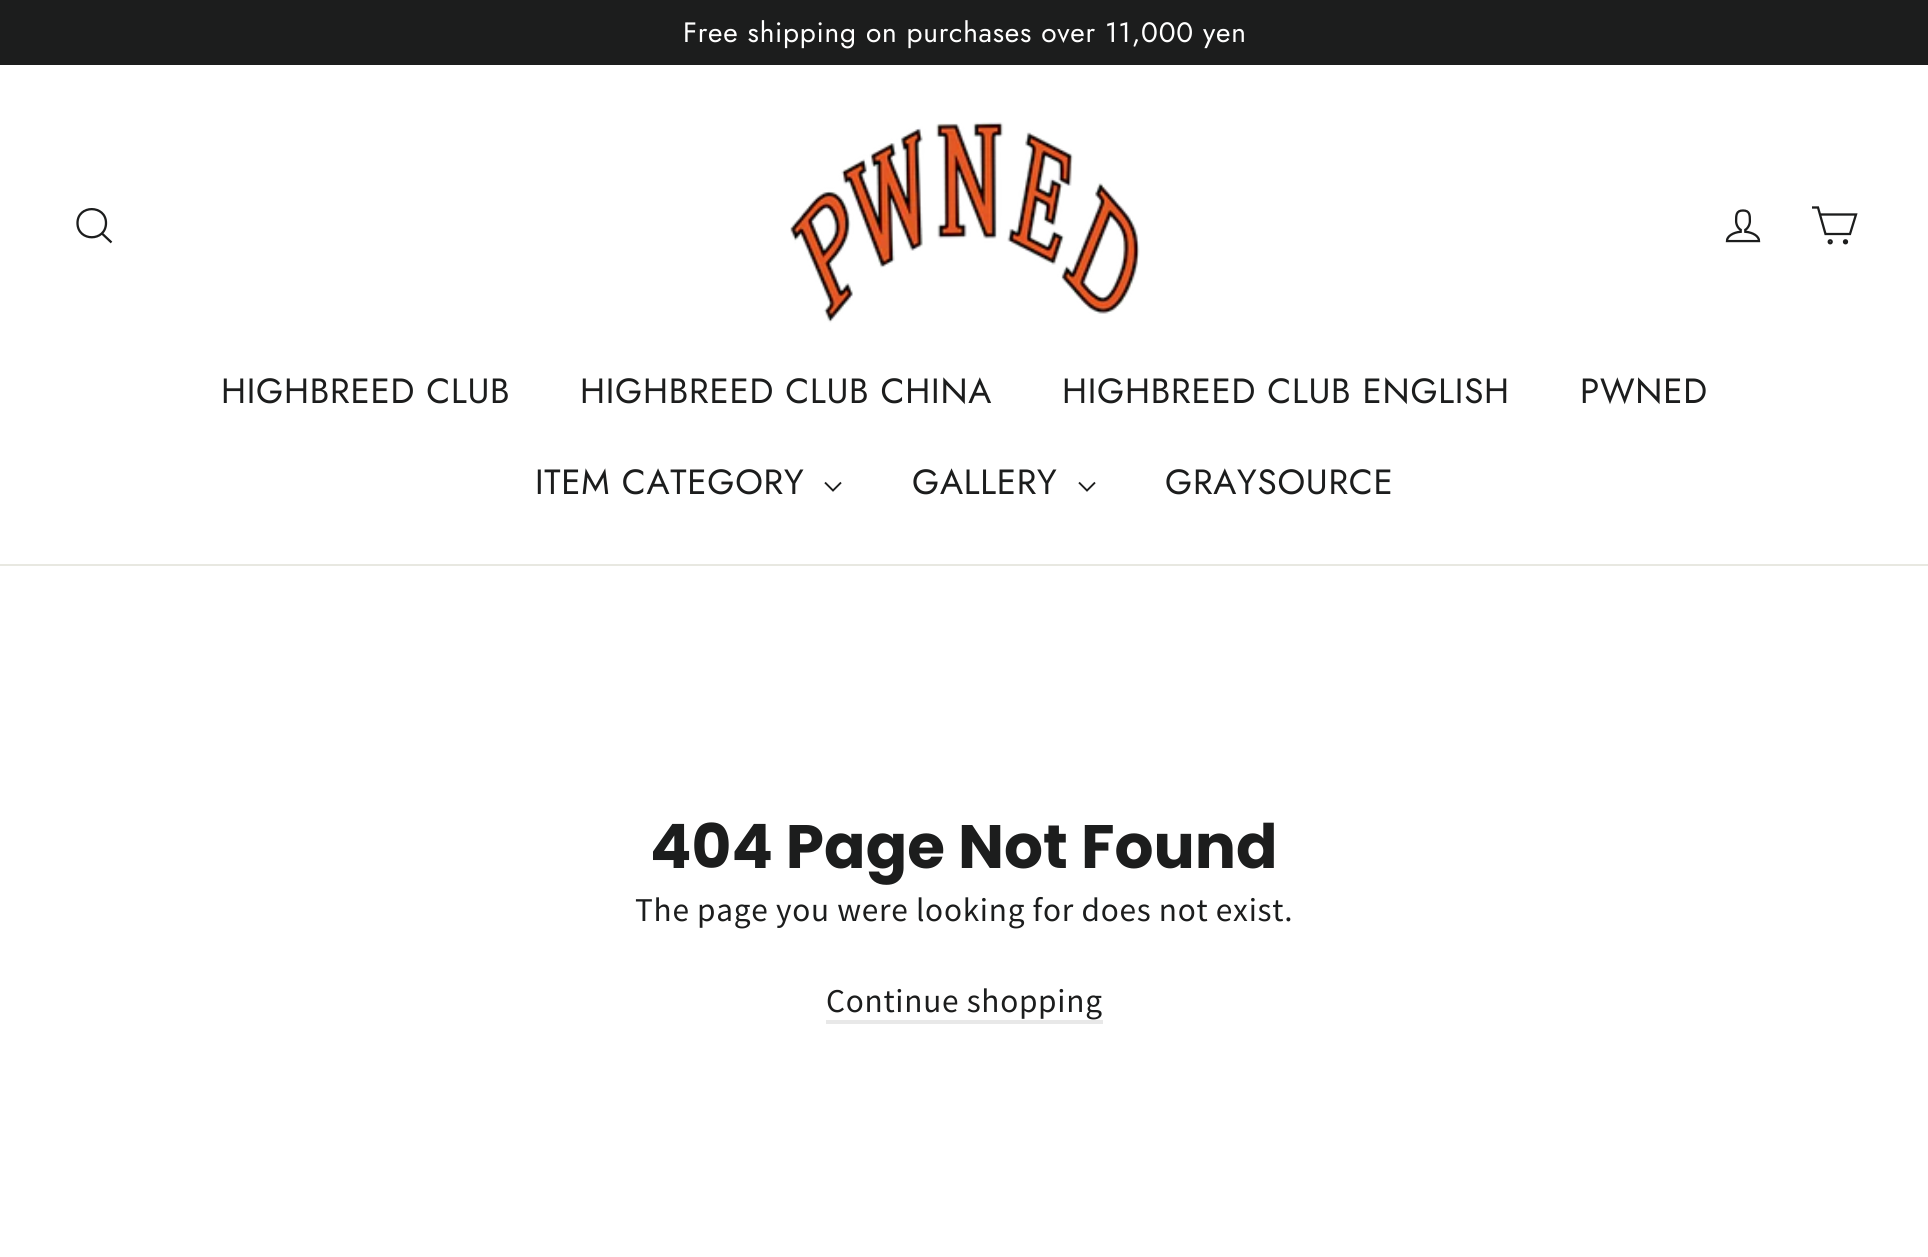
#include <cairo.h>
#include <math.h>
#include <stddef.h>

typedef struct { double x, y; const char *s; } line_t;

static void ink(cairo_t *ctx, unsigned color) {
    cairo_set_source_rgb(ctx, (color >> 16) / 255.0, (color >> 8 & 255) / 255.0, (color & 255) / 255.0);
}

static void write_spaced(cairo_t *ctx, double x, double y, const char *s, double letter, double word) {
    cairo_move_to(ctx, x, y);
    while (*s) {
        char ch[5] = {0};
        int n = 0;
        do ch[n++] = *s++; while ((*s & 0xC0) == 0x80);
        cairo_show_text(ctx, ch);
        cairo_rel_move_to(ctx, letter + word * (*ch == ' '), 0);
    }
}

static void paste(cairo_t *ctx, const char *path, double x, double y, double w, double h) {
    cairo_surface_t *image = cairo_image_surface_create_from_png(path);
    cairo_save(ctx);
    cairo_set_source_surface(ctx, image, x, y);
    cairo_rectangle(ctx, x, y, w, h);
    cairo_fill(ctx);
    cairo_restore(ctx);
    cairo_surface_destroy(image);
}

int main(void) {
    cairo_surface_t *surface = cairo_image_surface_create(CAIRO_FORMAT_RGB24, 1928, 1257);
    cairo_t *ctx = cairo_create(surface);
    cairo_font_options_t *options = cairo_font_options_create();
    cairo_font_options_set_hint_metrics(options, CAIRO_HINT_METRICS_OFF);
    cairo_font_options_set_hint_style(options, CAIRO_HINT_STYLE_NONE);
    cairo_set_font_options(ctx, options);
    cairo_set_miter_limit(ctx, 4);
    ink(ctx, 0xFFFFFF);
    cairo_paint(ctx);
    ink(ctx, 0x1C1D1D);
    cairo_rectangle(ctx, 0, 0, 1928, 65);
    cairo_fill(ctx);
    cairo_select_font_face(ctx, "Jost", CAIRO_FONT_SLANT_NORMAL, CAIRO_FONT_WEIGHT_NORMAL);
    cairo_set_font_size(ctx, 28);
    ink(ctx, 0xFFFFFF);
    write_spaced(ctx, 683, 42, "Free shipping on purchases over 11,000 yen", 0.75, 0);
    ink(ctx, 0xE8E8E1);
    cairo_rectangle(ctx, 0, 564, 1928, 2);
    cairo_fill(ctx);
    cairo_new_path(ctx);
    cairo_move_to(ctx, 106, 223);
    cairo_curve_to(ctx, 106, 242, 77.5, 242, 77.5, 223);
    cairo_curve_to(ctx, 77.5, 204.5, 106, 204.5, 106, 223);
    cairo_close_path(ctx);
    cairo_move_to(ctx, 111.5, 242.5);
    cairo_line_to(ctx, 102, 233.5);
    ink(ctx, 0x1C1D1D);
    cairo_set_line_width(ctx, 2.3);
    cairo_stroke(ctx);
    paste(ctx, "media/1.png", 790, 122, 350, 201);
    paste(ctx, "media/2.png", 1725, 209, 36, 34);
    cairo_new_path(ctx);
    cairo_move_to(ctx, 1820, 214.5);
    cairo_line_to(ctx, 1856, 214.5);
    cairo_line_to(ctx, 1850, 234);
    cairo_line_to(ctx, 1825.5, 234);
    cairo_line_to(ctx, 1818, 207.5);
    cairo_line_to(ctx, 1812, 207.5);
    cairo_stroke(ctx);
    cairo_arc(ctx, 1830.2, 241.8, 1.5, 0, 2 * M_PI);
    cairo_stroke(ctx);
    cairo_arc(ctx, 1845.5, 241.8, 1.5, 0, 2 * M_PI);
    cairo_fill_preserve(ctx);
    cairo_stroke(ctx);
    cairo_set_font_size(ctx, 35);
    {
        static const line_t items[] = {
            {221, 403, "HIGHBREED CLUB"},
            {580, 403, "HIGHBREED CLUB CHINA"},
            {1062, 403, "HIGHBREED CLUB ENGLISH"},
            {1580, 403, "PWNED"},
            {535, 494, "ITEM CATEGORY"},
        };
        for (size_t i = 0; i < sizeof items / sizeof *items; i++) {
            write_spaced(ctx, items[i].x, items[i].y, items[i].s, 0.75, 0);
        }
    }
    cairo_new_path(ctx);
    cairo_move_to(ctx, 825, 482.5);
    cairo_line_to(ctx, 833, 490.5);
    cairo_line_to(ctx, 841, 482.5);
    cairo_set_line_width(ctx, 1.9);
    cairo_stroke(ctx);
    write_spaced(ctx, 912, 494, "GALLERY", 0.75, 0);
    cairo_new_path(ctx);
    cairo_move_to(ctx, 1079, 482.5);
    cairo_line_to(ctx, 1087, 490.5);
    cairo_line_to(ctx, 1095, 482.5);
    cairo_stroke(ctx);
    write_spaced(ctx, 1165, 494, "GRAYSOURCE", 0.75, 0);
    cairo_select_font_face(ctx, "Poppins", CAIRO_FONT_SLANT_NORMAL, CAIRO_FONT_WEIGHT_BOLD);
    cairo_set_font_size(ctx, 61.25);
    cairo_move_to(ctx, 650, 868);
    cairo_show_text(ctx, "404 Page Not Found");
    cairo_select_font_face(ctx, "Noto Sans SC", CAIRO_FONT_SLANT_NORMAL, CAIRO_FONT_WEIGHT_NORMAL);
    cairo_set_font_size(ctx, 29.75);
    write_spaced(ctx, 635, 921, "The page you were looking for does not exist.", 0.75, 0);
    write_spaced(ctx, 826, 1012, "Continue shopping", 0.75, 0);
    ink(ctx, 0xE8E8E8);
    cairo_rectangle(ctx, 826, 1020, 277, 4);
    cairo_fill(ctx);
    cairo_surface_write_to_png(surface, "image.png");
    cairo_font_options_destroy(options);
    cairo_destroy(ctx);
    cairo_surface_destroy(surface);
    return 0;
}
